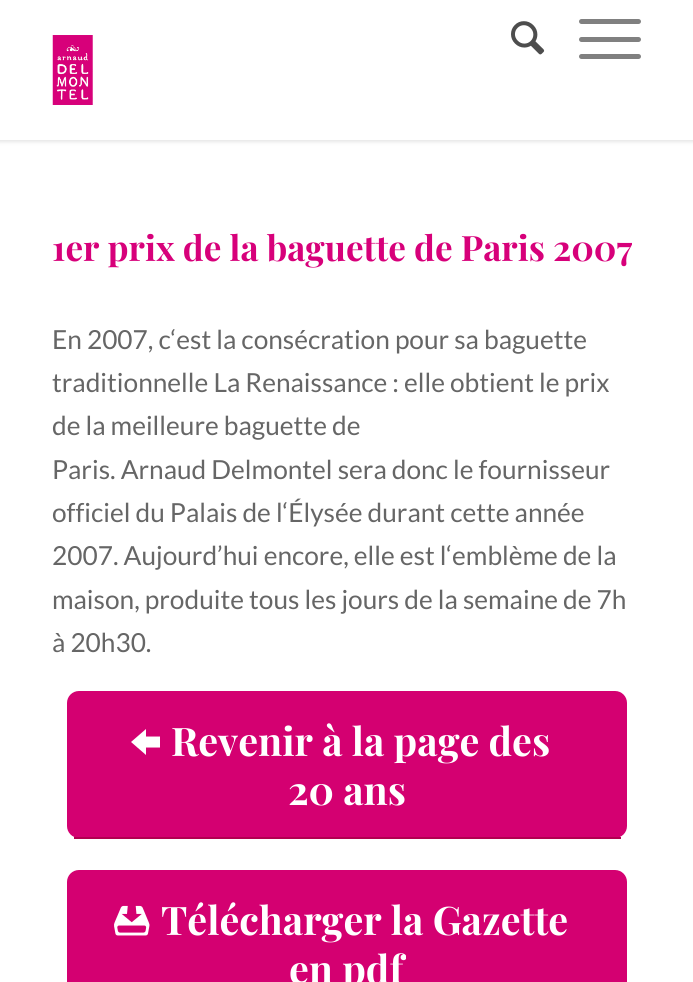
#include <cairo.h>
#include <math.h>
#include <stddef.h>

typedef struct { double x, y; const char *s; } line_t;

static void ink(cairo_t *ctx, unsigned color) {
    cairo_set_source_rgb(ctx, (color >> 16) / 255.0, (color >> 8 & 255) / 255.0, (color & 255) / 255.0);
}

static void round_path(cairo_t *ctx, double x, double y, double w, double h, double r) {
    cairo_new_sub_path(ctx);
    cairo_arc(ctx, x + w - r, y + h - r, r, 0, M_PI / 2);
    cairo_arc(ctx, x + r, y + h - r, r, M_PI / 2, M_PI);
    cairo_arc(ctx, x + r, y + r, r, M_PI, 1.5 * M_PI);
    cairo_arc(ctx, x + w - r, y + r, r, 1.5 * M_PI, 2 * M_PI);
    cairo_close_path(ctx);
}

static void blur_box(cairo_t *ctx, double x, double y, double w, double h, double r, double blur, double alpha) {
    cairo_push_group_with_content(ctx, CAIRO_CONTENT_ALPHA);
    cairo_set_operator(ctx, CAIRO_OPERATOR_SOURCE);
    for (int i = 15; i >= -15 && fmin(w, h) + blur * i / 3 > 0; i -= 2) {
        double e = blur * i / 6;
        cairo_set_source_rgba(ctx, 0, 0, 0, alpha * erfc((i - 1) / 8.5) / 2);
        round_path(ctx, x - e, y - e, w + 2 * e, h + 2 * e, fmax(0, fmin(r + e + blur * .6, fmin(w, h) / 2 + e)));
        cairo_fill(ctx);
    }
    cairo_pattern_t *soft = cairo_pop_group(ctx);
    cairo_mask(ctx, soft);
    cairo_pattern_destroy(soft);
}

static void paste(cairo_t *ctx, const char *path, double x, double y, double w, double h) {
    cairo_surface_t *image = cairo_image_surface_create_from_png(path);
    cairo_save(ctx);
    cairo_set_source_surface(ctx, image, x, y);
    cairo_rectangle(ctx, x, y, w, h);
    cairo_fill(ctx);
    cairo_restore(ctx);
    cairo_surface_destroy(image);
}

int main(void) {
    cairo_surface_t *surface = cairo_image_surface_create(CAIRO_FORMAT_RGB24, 693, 982);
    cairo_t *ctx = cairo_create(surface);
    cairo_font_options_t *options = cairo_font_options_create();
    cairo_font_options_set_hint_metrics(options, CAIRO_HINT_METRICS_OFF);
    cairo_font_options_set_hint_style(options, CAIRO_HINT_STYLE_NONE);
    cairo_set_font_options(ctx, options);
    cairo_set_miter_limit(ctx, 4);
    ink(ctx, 0xFFFFFF);
    cairo_paint(ctx);
    ink(ctx, 0x000000);
    blur_box(ctx, -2, -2, 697, 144, 0, 2, 0.1);
    ink(ctx, 0xFFFFFF);
    cairo_rectangle(ctx, 0, 0, 693, 140);
    cairo_fill(ctx);
    paste(ctx, "media/1.png", 52, 35, 41, 70);
    paste(ctx, "media/2.png", 511, 21, 34, 34);
    ink(ctx, 0x808080);
    round_path(ctx, 579, 37, 62, 5, 2.5);
    cairo_fill(ctx);
    round_path(ctx, 579, 19, 62, 5, 2.5);
    cairo_fill(ctx);
    round_path(ctx, 579, 54, 62, 5, 2.5);
    cairo_fill(ctx);
    cairo_select_font_face(ctx, "Playfair Display", CAIRO_FONT_SLANT_NORMAL, CAIRO_FONT_WEIGHT_BOLD);
    cairo_set_font_size(ctx, 35);
    ink(ctx, 0xD7007A);
    cairo_move_to(ctx, 52, 261);
    cairo_show_text(ctx, "1er prix de la baguette de Paris 2007");
    cairo_select_font_face(ctx, "Lato", CAIRO_FONT_SLANT_NORMAL, CAIRO_FONT_WEIGHT_NORMAL);
    cairo_set_font_size(ctx, 26.25);
    ink(ctx, 0x666666);
    {
        static const line_t items[] = {
            {52, 349, "En 2007, c‘est la consécration pour sa baguette"},
            {52, 392, "traditionnelle La Renaissance : elle obtient le prix"},
            {52, 435, "de la meilleure baguette de"},
            {52, 479, "Paris. Arnaud Delmontel sera donc le fournisseur"},
            {52, 522, "officiel du Palais de l‘Élysée durant cette année"},
            {52, 565, "2007. Aujourd’hui encore, elle est l‘emblème de la"},
            {52, 609, "maison, produite tous les jours de la semaine de 7h"},
            {52, 652, "à 20h30."},
        };
        for (size_t i = 0; i < sizeof items / sizeof *items; i++) {
            cairo_move_to(ctx, items[i].x, items[i].y);
            cairo_show_text(ctx, items[i].s);
        }
    }
    ink(ctx, 0xD40071);
    round_path(ctx, 67, 691, 560, 147, 12);
    cairo_fill(ctx);
    ink(ctx, 0xB20050);
    cairo_rectangle(ctx, 74, 837, 547, 2);
    cairo_fill(ctx);
    ink(ctx, 0xFFFFFF);
    cairo_new_path(ctx);
    cairo_move_to(ctx, 146, 755);
    cairo_line_to(ctx, 131, 742);
    cairo_line_to(ctx, 146, 729);
    cairo_line_to(ctx, 146, 736.5);
    cairo_line_to(ctx, 160, 736.5);
    cairo_line_to(ctx, 160, 747.5);
    cairo_line_to(ctx, 146, 747.5);
    cairo_close_path(ctx);
    cairo_fill(ctx);
    cairo_select_font_face(ctx, "Playfair Display", CAIRO_FONT_SLANT_NORMAL, CAIRO_FONT_WEIGHT_BOLD);
    cairo_set_font_size(ctx, 39.4);
    cairo_move_to(ctx, 171, 756);
    cairo_show_text(ctx, "Revenir à la page des");
    cairo_move_to(ctx, 288, 805);
    cairo_show_text(ctx, "20 ans");
    ink(ctx, 0xD40071);
    round_path(ctx, 67, 870, 560, 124, 12);
    cairo_fill(ctx);
    paste(ctx, "media/3.png", 114, 905, 36, 31);
    ink(ctx, 0xFFFFFF);
    cairo_move_to(ctx, 161, 935);
    cairo_show_text(ctx, "Télécharger la Gazette");
    cairo_move_to(ctx, 289, 984);
    cairo_show_text(ctx, "en pdf");
    cairo_surface_write_to_png(surface, "image.png");
    cairo_font_options_destroy(options);
    cairo_destroy(ctx);
    cairo_surface_destroy(surface);
    return 0;
}
